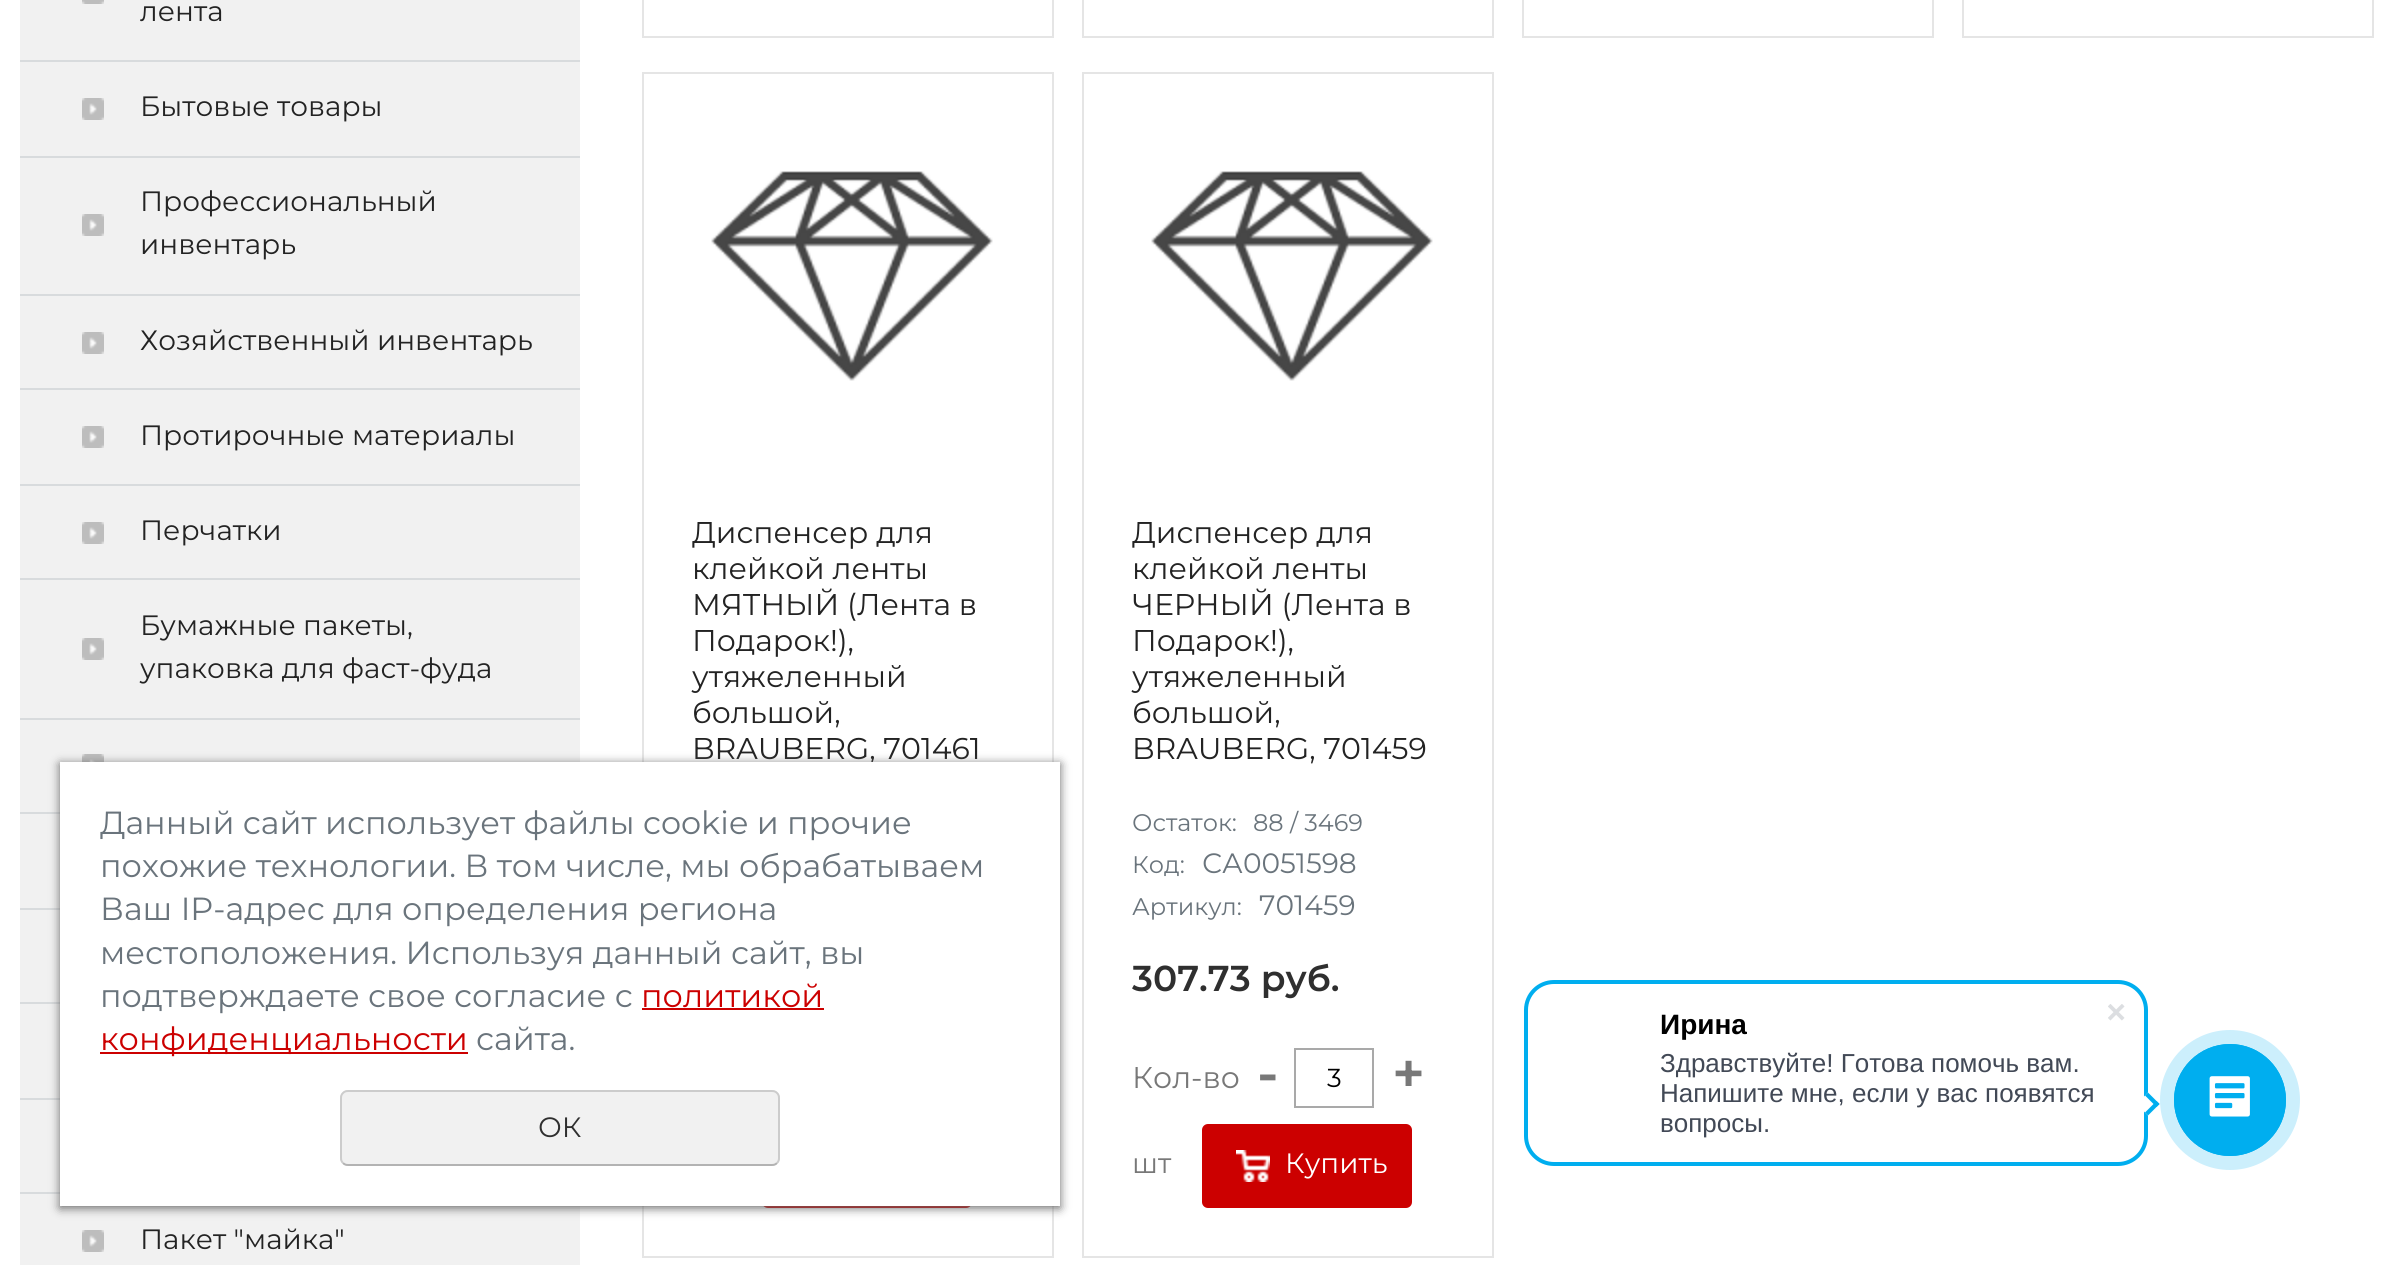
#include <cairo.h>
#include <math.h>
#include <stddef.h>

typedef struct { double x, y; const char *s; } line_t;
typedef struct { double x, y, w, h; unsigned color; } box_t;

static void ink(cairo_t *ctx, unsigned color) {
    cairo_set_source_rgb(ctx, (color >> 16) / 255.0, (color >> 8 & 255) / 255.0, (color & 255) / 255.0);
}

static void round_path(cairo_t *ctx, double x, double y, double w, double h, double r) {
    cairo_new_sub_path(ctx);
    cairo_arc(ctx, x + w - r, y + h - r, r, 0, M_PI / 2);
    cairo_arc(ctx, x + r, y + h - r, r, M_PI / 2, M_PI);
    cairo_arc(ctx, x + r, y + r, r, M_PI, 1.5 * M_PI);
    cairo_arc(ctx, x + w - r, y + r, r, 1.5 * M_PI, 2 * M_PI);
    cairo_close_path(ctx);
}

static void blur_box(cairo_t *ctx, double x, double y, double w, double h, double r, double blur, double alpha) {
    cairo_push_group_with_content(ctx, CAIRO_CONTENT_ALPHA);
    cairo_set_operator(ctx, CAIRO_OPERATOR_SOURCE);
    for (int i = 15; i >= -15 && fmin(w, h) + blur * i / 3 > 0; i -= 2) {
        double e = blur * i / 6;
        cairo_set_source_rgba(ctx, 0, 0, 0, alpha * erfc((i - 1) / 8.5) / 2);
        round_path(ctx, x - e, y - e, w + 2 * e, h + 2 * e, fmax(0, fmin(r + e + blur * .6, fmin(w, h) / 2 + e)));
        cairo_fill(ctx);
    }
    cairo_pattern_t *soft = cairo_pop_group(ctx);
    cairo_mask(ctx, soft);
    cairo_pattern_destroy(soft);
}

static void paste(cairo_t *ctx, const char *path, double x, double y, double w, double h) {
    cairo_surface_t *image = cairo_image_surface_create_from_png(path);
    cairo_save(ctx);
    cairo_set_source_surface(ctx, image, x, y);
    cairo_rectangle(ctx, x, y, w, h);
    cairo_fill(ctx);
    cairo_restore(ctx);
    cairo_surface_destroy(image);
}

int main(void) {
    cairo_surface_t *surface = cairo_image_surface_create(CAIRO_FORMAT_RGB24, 2396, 1265);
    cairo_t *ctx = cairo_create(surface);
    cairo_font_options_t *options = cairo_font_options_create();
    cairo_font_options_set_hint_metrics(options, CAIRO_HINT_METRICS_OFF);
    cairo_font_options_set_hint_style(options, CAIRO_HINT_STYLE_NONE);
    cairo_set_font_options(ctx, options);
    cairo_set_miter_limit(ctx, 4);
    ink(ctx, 0xFFFFFF);
    cairo_paint(ctx);
    ink(ctx, 0xF1F1F1);
    cairo_rectangle(ctx, 20, 0, 560, 60);
    cairo_fill(ctx);
    paste(ctx, "media/1.png", 82, 0, 22, 4);
    ink(ctx, 0xD8DBDD);
    cairo_rectangle(ctx, 20, 60, 560, 2);
    cairo_fill(ctx);
    cairo_select_font_face(ctx, "Montserrat", CAIRO_FONT_SLANT_NORMAL, CAIRO_FONT_WEIGHT_NORMAL);
    cairo_set_font_size(ctx, 28);
    ink(ctx, 0x232323);
    cairo_move_to(ctx, 140, 21);
    cairo_show_text(ctx, "лента");
    ink(ctx, 0xF1F1F1);
    cairo_rectangle(ctx, 20, 62, 560, 94);
    cairo_fill(ctx);
    paste(ctx, "media/2.png", 82, 98, 22, 22);
    ink(ctx, 0xD8DBDD);
    cairo_rectangle(ctx, 20, 156, 560, 2);
    cairo_fill(ctx);
    ink(ctx, 0x232323);
    cairo_move_to(ctx, 140, 116);
    cairo_show_text(ctx, "Бытовые товары");
    ink(ctx, 0xF1F1F1);
    cairo_rectangle(ctx, 20, 158, 560, 136);
    cairo_fill(ctx);
    paste(ctx, "media/2.png", 82, 214, 22, 22);
    ink(ctx, 0xD8DBDD);
    cairo_rectangle(ctx, 20, 294, 560, 2);
    cairo_fill(ctx);
    ink(ctx, 0x232323);
    cairo_move_to(ctx, 140, 211);
    cairo_show_text(ctx, "Профессиональный");
    cairo_move_to(ctx, 140, 254);
    cairo_show_text(ctx, "инвентарь");
    ink(ctx, 0xF1F1F1);
    cairo_rectangle(ctx, 20, 296, 560, 92);
    cairo_fill(ctx);
    paste(ctx, "media/2.png", 82, 332, 22, 22);
    ink(ctx, 0xD8DBDD);
    cairo_rectangle(ctx, 20, 388, 560, 2);
    cairo_fill(ctx);
    ink(ctx, 0x232323);
    cairo_move_to(ctx, 140, 350);
    cairo_show_text(ctx, "Хозяйственный инвентарь");
    ink(ctx, 0xF1F1F1);
    cairo_rectangle(ctx, 20, 390, 560, 94);
    cairo_fill(ctx);
    paste(ctx, "media/2.png", 82, 426, 22, 22);
    ink(ctx, 0xD8DBDD);
    cairo_rectangle(ctx, 20, 484, 560, 2);
    cairo_fill(ctx);
    ink(ctx, 0x232323);
    cairo_move_to(ctx, 140, 445);
    cairo_show_text(ctx, "Протирочные материалы");
    ink(ctx, 0xF1F1F1);
    cairo_rectangle(ctx, 20, 486, 560, 92);
    cairo_fill(ctx);
    paste(ctx, "media/2.png", 82, 522, 22, 22);
    ink(ctx, 0xD8DBDD);
    cairo_rectangle(ctx, 20, 578, 560, 2);
    cairo_fill(ctx);
    ink(ctx, 0x232323);
    cairo_move_to(ctx, 140, 540);
    cairo_show_text(ctx, "Перчатки");
    ink(ctx, 0xF1F1F1);
    cairo_rectangle(ctx, 20, 580, 560, 138);
    cairo_fill(ctx);
    paste(ctx, "media/2.png", 82, 638, 22, 22);
    ink(ctx, 0xD8DBDD);
    cairo_rectangle(ctx, 20, 718, 560, 2);
    cairo_fill(ctx);
    ink(ctx, 0x232323);
    cairo_move_to(ctx, 140, 635);
    cairo_show_text(ctx, "Бумажные пакеты,");
    cairo_move_to(ctx, 140, 678);
    cairo_show_text(ctx, "упаковка для фаст-фуда");
    ink(ctx, 0xF1F1F1);
    cairo_rectangle(ctx, 20, 720, 560, 92);
    cairo_fill(ctx);
    paste(ctx, "media/3.png", 82, 754, 22, 8);
    {
        static const box_t items[] = {
            {20, 812, 40, 2, 0xD8DBDD},
            {20, 814, 40, 94, 0xF1F1F1},
            {20, 908, 40, 2, 0xD8DBDD},
            {20, 910, 40, 92, 0xF1F1F1},
            {20, 1002, 40, 2, 0xD8DBDD},
            {20, 1004, 40, 94, 0xF1F1F1},
            {20, 1098, 40, 2, 0xD8DBDD},
            {20, 1100, 40, 92, 0xF1F1F1},
            {20, 1192, 40, 2, 0xD8DBDD},
            {20, 1194, 560, 71, 0xF1F1F1},
        };
        for (size_t i = 0; i < sizeof items / sizeof *items; i++) {
            ink(ctx, items[i].color);
            cairo_rectangle(ctx, items[i].x, items[i].y, items[i].w, items[i].h);
            cairo_fill(ctx);
        }
    }
    paste(ctx, "media/2.png", 82, 1230, 22, 22);
    ink(ctx, 0x232323);
    cairo_move_to(ctx, 140, 1249);
    cairo_show_text(ctx, "Пакет \"майка\"");
    cairo_rectangle(ctx, 643, -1, 410, 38);
    ink(ctx, 0xE5E5E5);
    cairo_stroke(ctx);
    cairo_rectangle(ctx, 1083, -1, 410, 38);
    cairo_stroke(ctx);
    cairo_rectangle(ctx, 1523, -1, 410, 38);
    cairo_stroke(ctx);
    cairo_rectangle(ctx, 1963, -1, 410, 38);
    cairo_stroke(ctx);
    cairo_rectangle(ctx, 643, 73, 410, 1184);
    cairo_stroke(ctx);
    paste(ctx, "media/4.png", 711, 171, 282, 210);
    cairo_set_font_size(ctx, 30);
    ink(ctx, 0x232323);
    {
        static const line_t items[] = {
            {692, 543, "Диспенсер для"},
            {692, 579, "клейкой ленты"},
            {692, 615, "МЯТНЫЙ (Лента в"},
            {692, 651, "Подарок!),"},
            {692, 687, "утяжеленный"},
            {692, 723, "большой,"},
            {692, 759, "BRAUBERG, 701461"},
        };
        for (size_t i = 0; i < sizeof items / sizeof *items; i++) {
            cairo_move_to(ctx, items[i].x, items[i].y);
            cairo_show_text(ctx, items[i].s);
        }
    }
    ink(ctx, 0xCC0000);
    round_path(ctx, 762, 1124, 210, 84, 6);
    cairo_fill(ctx);
    cairo_rectangle(ctx, 1083, 73, 410, 1184);
    ink(ctx, 0xE5E5E5);
    cairo_stroke(ctx);
    paste(ctx, "media/4.png", 1151, 171, 282, 210);
    ink(ctx, 0x232323);
    {
        static const line_t items[] = {
            {1132, 543, "Диспенсер для"},
            {1132, 579, "клейкой ленты"},
            {1132, 615, "ЧЕРНЫЙ (Лента в"},
            {1132, 651, "Подарок!),"},
            {1132, 687, "утяжеленный"},
            {1132, 723, "большой,"},
            {1132, 759, "BRAUBERG, 701459"},
        };
        for (size_t i = 0; i < sizeof items / sizeof *items; i++) {
            cairo_move_to(ctx, items[i].x, items[i].y);
            cairo_show_text(ctx, items[i].s);
        }
    }
    cairo_set_font_size(ctx, 24);
    ink(ctx, 0x6A747C);
    {
        static const line_t items[] = {
            {1132, 831, "Остаток:"},
            {1253, 831, "88 / 3469"},
            {1132, 873, "Код:"},
        };
        for (size_t i = 0; i < sizeof items / sizeof *items; i++) {
            cairo_move_to(ctx, items[i].x, items[i].y);
            cairo_show_text(ctx, items[i].s);
        }
    }
    cairo_set_font_size(ctx, 28);
    cairo_move_to(ctx, 1202, 873);
    cairo_show_text(ctx, "СА0051598");
    cairo_set_font_size(ctx, 24);
    cairo_move_to(ctx, 1132, 915);
    cairo_show_text(ctx, "Артикул:");
    cairo_set_font_size(ctx, 28);
    cairo_move_to(ctx, 1259, 915);
    cairo_show_text(ctx, "701459");
    cairo_select_font_face(ctx, "Montserrat SemiBold", CAIRO_FONT_SLANT_NORMAL, CAIRO_FONT_WEIGHT_NORMAL);
    cairo_set_font_size(ctx, 36);
    ink(ctx, 0x2F2F2F);
    cairo_move_to(ctx, 1132, 991);
    cairo_show_text(ctx, "307.73 руб.");
    cairo_select_font_face(ctx, "Montserrat", CAIRO_FONT_SLANT_NORMAL, CAIRO_FONT_WEIGHT_NORMAL);
    cairo_set_font_size(ctx, 30);
    ink(ctx, 0x787878);
    cairo_move_to(ctx, 1132, 1088);
    cairo_show_text(ctx, "Кол-во");
    cairo_select_font_face(ctx, "Montserrat SemiBold", CAIRO_FONT_SLANT_NORMAL, CAIRO_FONT_WEIGHT_NORMAL);
    cairo_set_font_size(ctx, 56);
    cairo_move_to(ctx, 1257, 1093);
    cairo_show_text(ctx, "-");
    cairo_rectangle(ctx, 1295, 1049, 78, 58);
    ink(ctx, 0xA9A9A9);
    cairo_stroke(ctx);
    cairo_select_font_face(ctx, "Montserrat", CAIRO_FONT_SLANT_NORMAL, CAIRO_FONT_WEIGHT_NORMAL);
    cairo_set_font_size(ctx, 26);
    ink(ctx, 0x000000);
    cairo_move_to(ctx, 1327, 1087);
    cairo_show_text(ctx, "3");
    cairo_select_font_face(ctx, "Montserrat SemiBold", CAIRO_FONT_SLANT_NORMAL, CAIRO_FONT_WEIGHT_NORMAL);
    cairo_set_font_size(ctx, 56);
    ink(ctx, 0x787878);
    cairo_move_to(ctx, 1392, 1093);
    cairo_show_text(ctx, "+");
    cairo_select_font_face(ctx, "Montserrat", CAIRO_FONT_SLANT_NORMAL, CAIRO_FONT_WEIGHT_NORMAL);
    cairo_set_font_size(ctx, 28);
    cairo_move_to(ctx, 1132, 1173);
    cairo_show_text(ctx, "шт");
    ink(ctx, 0xCC0000);
    round_path(ctx, 1202, 1124, 210, 84, 6);
    cairo_fill(ctx);
    paste(ctx, "media/5.png", 1236, 1150, 34, 32);
    ink(ctx, 0xFFFFFF);
    cairo_move_to(ctx, 1285, 1173);
    cairo_show_text(ctx, "Купить");
    ink(ctx, 0x666666);
    blur_box(ctx, 60, 764, 1000, 444, 0, 5, 1);
    ink(ctx, 0xFFFFFF);
    cairo_rectangle(ctx, 60, 762, 1000, 444);
    cairo_fill(ctx);
    cairo_set_font_size(ctx, 32);
    ink(ctx, 0x6A747C);
    {
        static const line_t items[] = {
            {100, 834, "Данный сайт использует файлы cookie и прочие"},
            {100, 877, "похожие технологии. В том числе, мы обрабатываем"},
            {100, 920, "Ваш IP-адрес для определения региона"},
            {100, 964, "местоположения. Используя данный сайт, вы"},
            {100, 1007, "подтверждаете свое согласие с"},
        };
        for (size_t i = 0; i < sizeof items / sizeof *items; i++) {
            cairo_move_to(ctx, items[i].x, items[i].y);
            cairo_show_text(ctx, items[i].s);
        }
    }
    ink(ctx, 0xCC0000);
    cairo_move_to(ctx, 641, 1007);
    cairo_show_text(ctx, "политикой");
    cairo_rectangle(ctx, 642, 1008, 182, 2);
    cairo_fill(ctx);
    cairo_rectangle(ctx, 100, 1052, 368, 2);
    cairo_fill(ctx);
    cairo_move_to(ctx, 100, 1050);
    cairo_show_text(ctx, "конфиденциальности");
    ink(ctx, 0x6A747C);
    cairo_move_to(ctx, 476, 1050);
    cairo_show_text(ctx, "сайта.");
    ink(ctx, 0xF1F1F1);
    round_path(ctx, 340, 1090, 440, 76, 8);
    cairo_fill(ctx);
    cairo_new_path(ctx);
    cairo_move_to(ctx, 777, 1163);
    cairo_curve_to(ctx, 775.5, 1164.5, 774, 1165, 772, 1165);
    cairo_line_to(ctx, 348, 1165);
    cairo_curve_to(ctx, 346, 1165, 344.5, 1164.5, 343, 1163);
    ink(ctx, 0xB3B3B3);
    cairo_stroke(ctx);
    cairo_new_path(ctx);
    cairo_move_to(ctx, 343, 1163);
    cairo_curve_to(ctx, 341.5, 1161.5, 341, 1160, 341, 1158);
    cairo_line_to(ctx, 341, 1098);
    cairo_curve_to(ctx, 341, 1096, 341.5, 1094.5, 343, 1093);
    cairo_curve_to(ctx, 344.5, 1091.5, 346, 1091, 348, 1091);
    cairo_line_to(ctx, 772, 1091);
    cairo_curve_to(ctx, 774, 1091, 775.5, 1091.5, 777, 1093);
    cairo_curve_to(ctx, 778.5, 1094.5, 779, 1096, 779, 1098);
    cairo_line_to(ctx, 779, 1158);
    cairo_curve_to(ctx, 779, 1160, 778.5, 1161.5, 777, 1163);
    ink(ctx, 0xCCCCCC);
    cairo_stroke(ctx);
    cairo_set_font_size(ctx, 28);
    ink(ctx, 0x2F2F2F);
    cairo_move_to(ctx, 538, 1137);
    cairo_show_text(ctx, "ОК");
    round_path(ctx, 1526, 982, 620, 182, 28);
    ink(ctx, 0x00AEEF);
    cairo_set_line_width(ctx, 4);
    cairo_stroke(ctx);
    cairo_select_font_face(ctx, "Liberation Sans", CAIRO_FONT_SLANT_NORMAL, CAIRO_FONT_WEIGHT_BOLD);
    ink(ctx, 0x000000);
    cairo_move_to(ctx, 1660, 1034);
    cairo_show_text(ctx, "Ирина");
    cairo_select_font_face(ctx, "Liberation Sans", CAIRO_FONT_SLANT_NORMAL, CAIRO_FONT_WEIGHT_NORMAL);
    cairo_set_font_size(ctx, 26);
    ink(ctx, 0x424956);
    {
        static const line_t items[] = {
            {1660, 1072, "Здравствуйте! Готова помочь вам."},
            {1660, 1102, "Напишите мне, если у вас появятся"},
            {1660, 1132, "вопросы."},
        };
        for (size_t i = 0; i < sizeof items / sizeof *items; i++) {
            cairo_move_to(ctx, items[i].x, items[i].y);
            cairo_show_text(ctx, items[i].s);
        }
    }
    paste(ctx, "media/6.png", 2108, 1004, 17, 17);
    ink(ctx, 0xFFFFFF);
    cairo_new_path(ctx);
    cairo_move_to(ctx, 2136.5, 1104);
    cairo_line_to(ctx, 2148, 1092.5);
    cairo_line_to(ctx, 2159.5, 1104);
    cairo_line_to(ctx, 2148, 1115.5);
    cairo_close_path(ctx);
    cairo_fill(ctx);
    ink(ctx, 0x00AEEF);
    cairo_new_path(ctx);
    cairo_move_to(ctx, 2145, 1095.5);
    cairo_line_to(ctx, 2148, 1092.5);
    cairo_line_to(ctx, 2159.5, 1104);
    cairo_line_to(ctx, 2156.5, 1107);
    cairo_close_path(ctx);
    cairo_fill(ctx);
    cairo_new_path(ctx);
    cairo_move_to(ctx, 2145, 1112.5);
    cairo_line_to(ctx, 2156.5, 1101);
    cairo_line_to(ctx, 2159.5, 1104);
    cairo_line_to(ctx, 2148, 1115.5);
    cairo_close_path(ctx);
    cairo_fill(ctx);
    ink(ctx, 0xCCEFFC);
    cairo_arc(ctx, 2230, 1100, 70, 0, 2 * M_PI);
    cairo_fill(ctx);
    cairo_arc(ctx, 2230, 1100, 55, 0, 2 * M_PI);
    ink(ctx, 0x00AEEF);
    cairo_set_line_width(ctx, 2);
    cairo_stroke(ctx);
    cairo_arc(ctx, 2230, 1100, 56, 0, 2 * M_PI);
    cairo_fill(ctx);
    paste(ctx, "media/7.png", 2209, 1076, 41, 41);
    cairo_surface_write_to_png(surface, "image.png");
    cairo_font_options_destroy(options);
    cairo_destroy(ctx);
    cairo_surface_destroy(surface);
    return 0;
}
